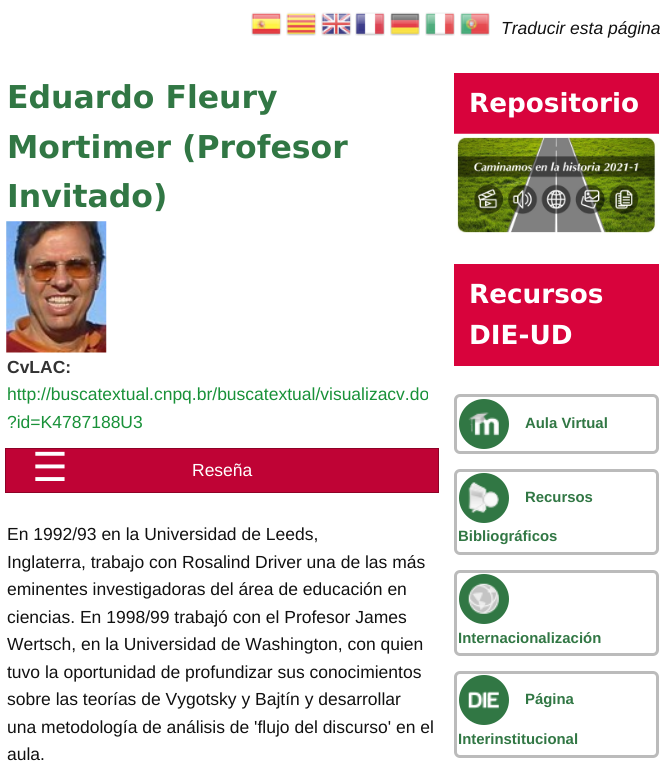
#include <cairo.h>
#include <math.h>
#include <stddef.h>

typedef struct { double x, y; const char *s; } line_t;

static void ink(cairo_t *ctx, unsigned color) {
    cairo_set_source_rgb(ctx, (color >> 16) / 255.0, (color >> 8 & 255) / 255.0, (color & 255) / 255.0);
}

static void round_path(cairo_t *ctx, double x, double y, double w, double h, double r) {
    cairo_new_sub_path(ctx);
    cairo_arc(ctx, x + w - r, y + h - r, r, 0, M_PI / 2);
    cairo_arc(ctx, x + r, y + h - r, r, M_PI / 2, M_PI);
    cairo_arc(ctx, x + r, y + r, r, M_PI, 1.5 * M_PI);
    cairo_arc(ctx, x + w - r, y + r, r, 1.5 * M_PI, 2 * M_PI);
    cairo_close_path(ctx);
}

static void paste(cairo_t *ctx, const char *path, double x, double y, double w, double h) {
    cairo_surface_t *image = cairo_image_surface_create_from_png(path);
    cairo_save(ctx);
    cairo_set_source_surface(ctx, image, x, y);
    cairo_rectangle(ctx, x, y, w, h);
    cairo_fill(ctx);
    cairo_restore(ctx);
    cairo_surface_destroy(image);
}

int main(void) {
    cairo_surface_t *surface = cairo_image_surface_create(CAIRO_FORMAT_RGB24, 667, 765);
    cairo_t *ctx = cairo_create(surface);
    cairo_font_options_t *options = cairo_font_options_create();
    cairo_font_options_set_hint_metrics(options, CAIRO_HINT_METRICS_OFF);
    cairo_font_options_set_hint_style(options, CAIRO_HINT_STYLE_NONE);
    cairo_set_font_options(ctx, options);
    cairo_set_miter_limit(ctx, 4);
    ink(ctx, 0xFFFFFF);
    cairo_paint(ctx);
    paste(ctx, "media/1.png", 251, 12, 31, 24);
    paste(ctx, "media/2.png", 286, 12, 31, 24);
    paste(ctx, "media/3.png", 321, 12, 31, 24);
    paste(ctx, "media/4.png", 355, 12, 30, 24);
    paste(ctx, "media/5.png", 390, 12, 30, 24);
    paste(ctx, "media/6.png", 425, 12, 30, 24);
    paste(ctx, "media/7.png", 460, 12, 30, 24);
    cairo_select_font_face(ctx, "Liberation Sans", CAIRO_FONT_SLANT_ITALIC, CAIRO_FONT_WEIGHT_NORMAL);
    cairo_set_font_size(ctx, 17.5);
    ink(ctx, 0x111111);
    cairo_move_to(ctx, 501, 34);
    cairo_show_text(ctx, "Traducir esta página");
    cairo_select_font_face(ctx, "DejaVu Sans", CAIRO_FONT_SLANT_NORMAL, CAIRO_FONT_WEIGHT_BOLD);
    cairo_set_font_size(ctx, 31.5);
    ink(ctx, 0x317744);
    {
        static const line_t items[] = {
            {7, 108, "Eduardo Fleury"},
            {7, 158, "Mortimer (Profesor"},
            {7, 207, "Invitado)"},
        };
        for (size_t i = 0; i < sizeof items / sizeof *items; i++) {
            cairo_move_to(ctx, items[i].x, items[i].y);
            cairo_show_text(ctx, items[i].s);
        }
    }
    paste(ctx, "media/8.png", 6, 221, 101, 132);
    cairo_select_font_face(ctx, "Liberation Sans", CAIRO_FONT_SLANT_NORMAL, CAIRO_FONT_WEIGHT_BOLD);
    cairo_set_font_size(ctx, 17.5);
    ink(ctx, 0x333333);
    cairo_move_to(ctx, 7, 373);
    cairo_show_text(ctx, "CvLAC:");
    cairo_select_font_face(ctx, "Liberation Sans", CAIRO_FONT_SLANT_NORMAL, CAIRO_FONT_WEIGHT_NORMAL);
    ink(ctx, 0x189138);
    cairo_move_to(ctx, 7, 400);
    cairo_show_text(ctx, "http://buscatextual.cnpq.br/buscatextual/visualizacv.do");
    cairo_move_to(ctx, 7, 428);
    cairo_show_text(ctx, "?id=K4787188U3");
    ink(ctx, 0xBF0335);
    cairo_rectangle(ctx, 5.5, 448.5, 433, 44);
    cairo_fill_preserve(ctx);
    ink(ctx, 0x8D0227);
    cairo_set_line_width(ctx, 1);
    cairo_stroke(ctx);
    cairo_select_font_face(ctx, "DejaVu Sans", CAIRO_FONT_SLANT_NORMAL, CAIRO_FONT_WEIGHT_NORMAL);
    cairo_set_font_size(ctx, 40);
    ink(ctx, 0xFFFFFF);
    cairo_move_to(ctx, 32, 481);
    cairo_show_text(ctx, "☰");
    cairo_select_font_face(ctx, "Liberation Sans", CAIRO_FONT_SLANT_NORMAL, CAIRO_FONT_WEIGHT_NORMAL);
    cairo_set_font_size(ctx, 17.5);
    cairo_move_to(ctx, 192, 476);
    cairo_show_text(ctx, "Reseña");
    ink(ctx, 0x111111);
    {
        static const line_t items[] = {
            {7, 540, "En 1992/93 en la Universidad de Leeds,"},
            {7, 568, "Inglaterra, trabajo con Rosalind Driver una de las más"},
            {7, 595, "eminentes investigadoras del área de educación en"},
            {7, 623, "ciencias. En 1998/99 trabajó con el Profesor James"},
            {7, 650, "Wertsch, en la Universidad de Washington, con quien"},
            {7, 678, "tuvo la oportunidad de profundizar sus conocimientos"},
            {7, 705, "sobre las teorías de Vygotsky y Bajtín y desarrollar"},
            {7, 733, "una metodología de análisis de 'flujo del discurso' en el"},
            {7, 760, "aula."},
        };
        for (size_t i = 0; i < sizeof items / sizeof *items; i++) {
            cairo_move_to(ctx, items[i].x, items[i].y);
            cairo_show_text(ctx, items[i].s);
        }
    }
    ink(ctx, 0xD8033C);
    cairo_rectangle(ctx, 454, 73, 205, 61);
    cairo_fill(ctx);
    cairo_select_font_face(ctx, "DejaVu Sans", CAIRO_FONT_SLANT_NORMAL, CAIRO_FONT_WEIGHT_BOLD);
    cairo_set_font_size(ctx, 26.25);
    ink(ctx, 0xFFFFFF);
    cairo_move_to(ctx, 469, 112);
    cairo_show_text(ctx, "Repositorio");
    paste(ctx, "media/9.png", 454, 133, 205, 100);
    ink(ctx, 0xD8033C);
    cairo_rectangle(ctx, 454, 264, 205, 102);
    cairo_fill(ctx);
    ink(ctx, 0xFFFFFF);
    cairo_move_to(ctx, 469, 303);
    cairo_show_text(ctx, "Recursos");
    cairo_move_to(ctx, 469, 344);
    cairo_show_text(ctx, "DIE-UD");
    round_path(ctx, 455.5, 395.5, 202, 57, 4.5);
    ink(ctx, 0xBBBBBB);
    cairo_set_line_width(ctx, 3);
    cairo_stroke(ctx);
    ink(ctx, 0x317744);
    cairo_arc(ctx, 484, 424, 25, 0, 2 * M_PI);
    cairo_fill(ctx);
    paste(ctx, "media/10.png", 468, 412, 31, 24);
    cairo_select_font_face(ctx, "Liberation Sans", CAIRO_FONT_SLANT_NORMAL, CAIRO_FONT_WEIGHT_BOLD);
    cairo_set_font_size(ctx, 14.9);
    cairo_move_to(ctx, 525, 428);
    cairo_show_text(ctx, "Aula Virtual");
    round_path(ctx, 455.5, 470.5, 202, 83, 4.5);
    ink(ctx, 0xBBBBBB);
    cairo_stroke(ctx);
    ink(ctx, 0x317744);
    cairo_arc(ctx, 484, 498, 25, 0, 2 * M_PI);
    cairo_fill(ctx);
    paste(ctx, "media/11.png", 468, 482, 31, 31);
    cairo_move_to(ctx, 525, 502);
    cairo_show_text(ctx, "Recursos");
    cairo_move_to(ctx, 458, 541);
    cairo_show_text(ctx, "Bibliográficos");
    round_path(ctx, 455.5, 571.5, 202, 83, 4.5);
    ink(ctx, 0xBBBBBB);
    cairo_stroke(ctx);
    ink(ctx, 0x317744);
    cairo_arc(ctx, 484, 599, 25, 0, 2 * M_PI);
    cairo_fill(ctx);
    paste(ctx, "media/12.png", 468, 583, 31, 31);
    cairo_move_to(ctx, 458, 643);
    cairo_show_text(ctx, "Internacionalización");
    round_path(ctx, 455.5, 672.5, 202, 84, 4.5);
    ink(ctx, 0xBBBBBB);
    cairo_stroke(ctx);
    ink(ctx, 0x317744);
    cairo_arc(ctx, 484, 700, 25, 0, 2 * M_PI);
    cairo_fill(ctx);
    paste(ctx, "media/13.png", 468, 691, 31, 18);
    cairo_move_to(ctx, 525, 704);
    cairo_show_text(ctx, "Página");
    cairo_move_to(ctx, 458, 744);
    cairo_show_text(ctx, "Interinstitucional");
    cairo_surface_write_to_png(surface, "image.png");
    cairo_font_options_destroy(options);
    cairo_destroy(ctx);
    cairo_surface_destroy(surface);
    return 0;
}
